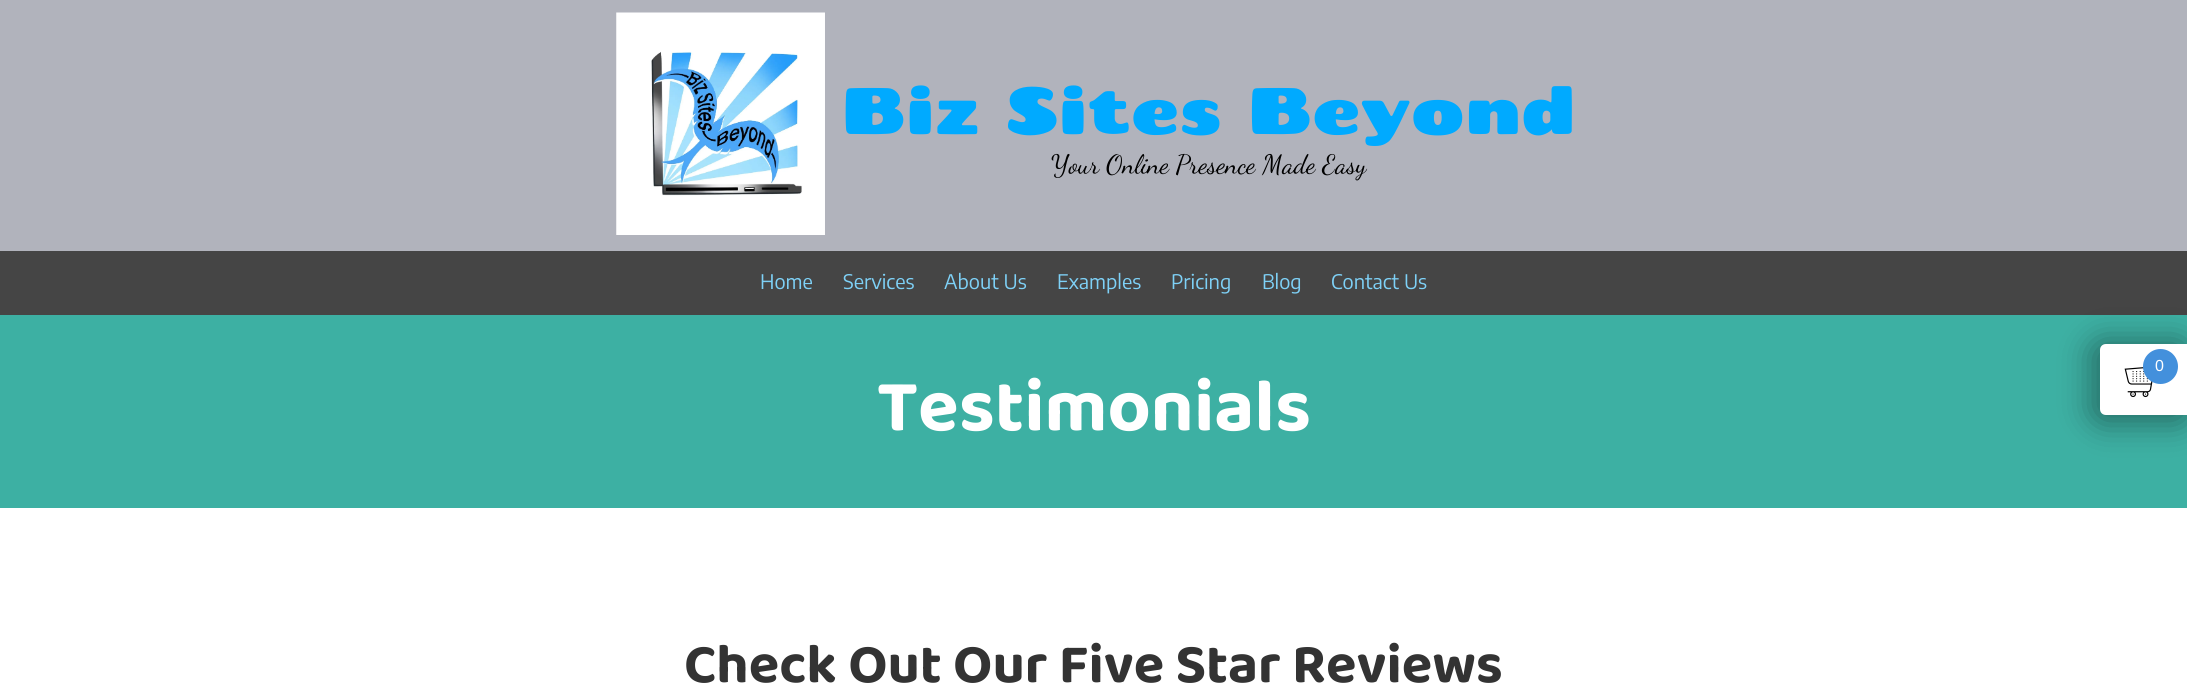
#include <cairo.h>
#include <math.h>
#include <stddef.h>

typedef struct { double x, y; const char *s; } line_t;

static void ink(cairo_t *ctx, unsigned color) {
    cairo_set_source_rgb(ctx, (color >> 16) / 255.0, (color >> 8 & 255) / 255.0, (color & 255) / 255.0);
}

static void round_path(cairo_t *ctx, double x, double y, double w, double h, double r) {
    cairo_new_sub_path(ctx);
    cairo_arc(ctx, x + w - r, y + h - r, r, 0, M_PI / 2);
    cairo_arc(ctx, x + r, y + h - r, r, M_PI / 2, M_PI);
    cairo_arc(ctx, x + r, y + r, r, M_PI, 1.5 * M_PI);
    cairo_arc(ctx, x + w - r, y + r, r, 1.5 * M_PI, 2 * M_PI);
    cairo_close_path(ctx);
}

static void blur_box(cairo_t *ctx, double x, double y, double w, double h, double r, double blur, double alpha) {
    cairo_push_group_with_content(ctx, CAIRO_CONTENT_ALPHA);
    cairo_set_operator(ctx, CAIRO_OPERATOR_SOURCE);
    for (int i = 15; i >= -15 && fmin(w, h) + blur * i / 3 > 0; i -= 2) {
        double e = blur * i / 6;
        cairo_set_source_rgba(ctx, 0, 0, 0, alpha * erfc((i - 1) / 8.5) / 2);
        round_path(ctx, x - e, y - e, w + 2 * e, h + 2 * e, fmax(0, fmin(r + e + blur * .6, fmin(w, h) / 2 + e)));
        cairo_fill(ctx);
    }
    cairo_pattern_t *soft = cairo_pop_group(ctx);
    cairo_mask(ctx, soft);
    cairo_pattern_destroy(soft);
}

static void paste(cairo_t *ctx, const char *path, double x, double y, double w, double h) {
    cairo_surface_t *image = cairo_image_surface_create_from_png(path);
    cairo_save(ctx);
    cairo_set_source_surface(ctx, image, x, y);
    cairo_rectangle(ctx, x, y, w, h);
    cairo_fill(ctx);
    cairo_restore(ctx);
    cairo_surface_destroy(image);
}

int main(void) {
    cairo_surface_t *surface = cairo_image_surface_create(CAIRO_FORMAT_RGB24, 2187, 684);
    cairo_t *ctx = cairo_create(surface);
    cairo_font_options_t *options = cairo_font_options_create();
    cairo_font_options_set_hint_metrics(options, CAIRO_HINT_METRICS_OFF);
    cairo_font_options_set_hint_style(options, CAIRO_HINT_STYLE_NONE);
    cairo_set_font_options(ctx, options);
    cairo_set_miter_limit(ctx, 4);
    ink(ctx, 0xB1B3BC);
    cairo_paint(ctx);
    paste(ctx, "media/1.png", 616, 12, 209, 223);
    cairo_select_font_face(ctx, "Chango", CAIRO_FONT_SLANT_NORMAL, CAIRO_FONT_WEIGHT_NORMAL);
    cairo_set_font_size(ctx, 65.5);
    ink(ctx, 0x00AAFF);
    cairo_move_to(ctx, 842, 134);
    cairo_show_text(ctx, "Biz Sites Beyond");
    cairo_select_font_face(ctx, "Dancing Script", CAIRO_FONT_SLANT_NORMAL, CAIRO_FONT_WEIGHT_NORMAL);
    cairo_set_font_size(ctx, 26.5);
    ink(ctx, 0x000000);
    cairo_move_to(ctx, 1051, 173);
    cairo_show_text(ctx, "Your Online Presence Made Easy");
    ink(ctx, 0x454545);
    cairo_rectangle(ctx, 0, 251, 2187, 64);
    cairo_fill(ctx);
    cairo_select_font_face(ctx, "Encode Sans Condensed", CAIRO_FONT_SLANT_NORMAL, CAIRO_FONT_WEIGHT_NORMAL);
    cairo_set_font_size(ctx, 20);
    ink(ctx, 0x7ED1F7);
    {
        static const line_t items[] = {
            {760, 289, "Home"},
            {843, 289, "Services"},
            {944, 289, "About Us"},
            {1057, 289, "Examples"},
            {1171, 289, "Pricing"},
            {1262, 289, "Blog"},
            {1331, 289, "Contact Us"},
        };
        for (size_t i = 0; i < sizeof items / sizeof *items; i++) {
            cairo_move_to(ctx, items[i].x, items[i].y);
            cairo_show_text(ctx, items[i].s);
        }
    }
    ink(ctx, 0x3DB0A3);
    cairo_rectangle(ctx, 0, 315, 2187, 193);
    cairo_fill(ctx);
    cairo_select_font_face(ctx, "Baloo Da 2", CAIRO_FONT_SLANT_NORMAL, CAIRO_FONT_WEIGHT_BOLD);
    cairo_set_font_size(ctx, 75);
    ink(ctx, 0xFFFFFF);
    cairo_move_to(ctx, 877, 430);
    cairo_show_text(ctx, "Testimonials");
    cairo_rectangle(ctx, 0, 508, 2187, 176);
    cairo_fill(ctx);
    cairo_set_font_size(ctx, 56.25);
    ink(ctx, 0x333333);
    cairo_move_to(ctx, 684, 682);
    cairo_show_text(ctx, "Check Out Our Five Star Reviews");
    ink(ctx, 0x000000);
    blur_box(ctx, 2089, 339, 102, 86, 14, 15, 0.35);
    ink(ctx, 0xFFFFFF);
    cairo_new_path(ctx);
    cairo_move_to(ctx, 2106, 344);
    cairo_line_to(ctx, 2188, 344);
    cairo_line_to(ctx, 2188, 415);
    cairo_line_to(ctx, 2106, 415);
    cairo_curve_to(ctx, 2102.5, 415, 2100, 412.5, 2100, 409);
    cairo_line_to(ctx, 2100, 350);
    cairo_curve_to(ctx, 2100, 346.5, 2102.5, 344, 2106, 344);
    cairo_close_path(ctx);
    cairo_fill(ctx);
    paste(ctx, "media/2.png", 2124, 367, 29, 31);
    ink(ctx, 0x4390DC);
    cairo_arc(ctx, 2160.5, 366.5, 17.5, 0, 2 * M_PI);
    cairo_fill(ctx);
    cairo_select_font_face(ctx, "Liberation Sans", CAIRO_FONT_SLANT_NORMAL, CAIRO_FONT_WEIGHT_NORMAL);
    cairo_set_font_size(ctx, 16);
    ink(ctx, 0xFFFFFF);
    cairo_move_to(ctx, 2155, 371);
    cairo_show_text(ctx, "0");
    cairo_surface_write_to_png(surface, "image.png");
    cairo_font_options_destroy(options);
    cairo_destroy(ctx);
    cairo_surface_destroy(surface);
    return 0;
}
